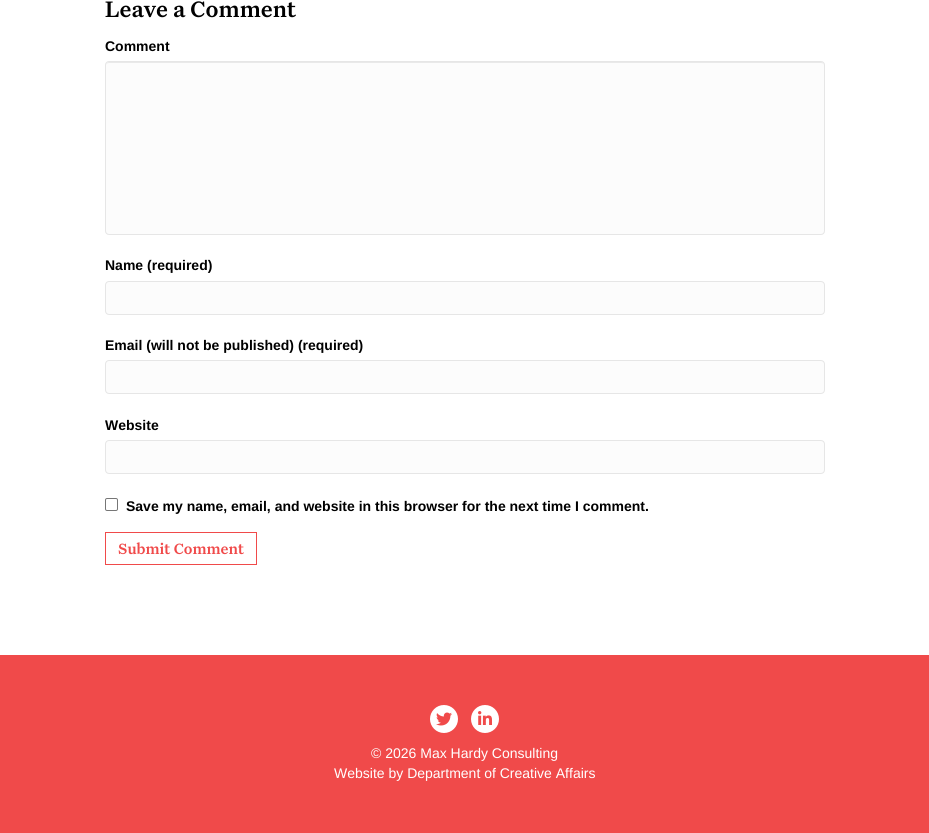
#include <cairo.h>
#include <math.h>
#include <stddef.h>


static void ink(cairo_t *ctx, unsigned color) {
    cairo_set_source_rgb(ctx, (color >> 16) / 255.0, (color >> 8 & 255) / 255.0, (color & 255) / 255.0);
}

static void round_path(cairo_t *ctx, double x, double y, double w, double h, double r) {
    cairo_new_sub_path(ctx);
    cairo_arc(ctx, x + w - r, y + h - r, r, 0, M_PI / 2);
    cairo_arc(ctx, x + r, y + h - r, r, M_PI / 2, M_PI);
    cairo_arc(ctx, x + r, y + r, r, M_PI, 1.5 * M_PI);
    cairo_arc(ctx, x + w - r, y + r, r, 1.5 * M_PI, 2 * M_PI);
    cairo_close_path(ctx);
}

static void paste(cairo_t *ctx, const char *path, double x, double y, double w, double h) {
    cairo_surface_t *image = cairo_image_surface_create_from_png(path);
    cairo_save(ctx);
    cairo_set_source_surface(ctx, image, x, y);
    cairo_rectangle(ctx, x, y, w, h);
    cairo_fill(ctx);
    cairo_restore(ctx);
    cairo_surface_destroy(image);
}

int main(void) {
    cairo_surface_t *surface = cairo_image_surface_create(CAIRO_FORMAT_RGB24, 929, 833);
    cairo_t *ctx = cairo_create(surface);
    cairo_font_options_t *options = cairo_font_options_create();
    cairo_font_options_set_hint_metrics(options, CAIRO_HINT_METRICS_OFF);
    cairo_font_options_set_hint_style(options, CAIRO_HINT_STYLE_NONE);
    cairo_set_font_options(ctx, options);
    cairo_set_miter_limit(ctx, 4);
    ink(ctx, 0xFFFFFF);
    cairo_paint(ctx);
    cairo_select_font_face(ctx, "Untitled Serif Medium", CAIRO_FONT_SLANT_NORMAL, CAIRO_FONT_WEIGHT_NORMAL);
    cairo_set_font_size(ctx, 24);
    ink(ctx, 0x000000);
    cairo_move_to(ctx, 105, 17);
    cairo_show_text(ctx, "Leave a Comment");
    cairo_select_font_face(ctx, "Liberation Sans", CAIRO_FONT_SLANT_NORMAL, CAIRO_FONT_WEIGHT_BOLD);
    cairo_set_font_size(ctx, 14);
    cairo_move_to(ctx, 105, 51);
    cairo_show_text(ctx, "Comment");
    ink(ctx, 0xFCFCFC);
    round_path(ctx, 105, 61, 720, 174, 4);
    cairo_fill(ctx);
    ink(ctx, 0xE9E9E9);
    cairo_new_path(ctx);
    cairo_move_to(ctx, 109, 63);
    cairo_line_to(ctx, 821, 63);
    cairo_curve_to(ctx, 823, 63, 824, 64, 824, 66);
    cairo_curve_to(ctx, 824, 64, 823, 62, 821, 62);
    cairo_line_to(ctx, 109, 62);
    cairo_curve_to(ctx, 107, 62, 106, 64, 106, 66);
    cairo_curve_to(ctx, 106, 64, 107, 63, 109, 63);
    cairo_close_path(ctx);
    cairo_fill(ctx);
    round_path(ctx, 105.5, 61.5, 719, 173, 3.5);
    ink(ctx, 0xE6E6E6);
    cairo_set_line_width(ctx, 1);
    cairo_stroke(ctx);
    ink(ctx, 0x000000);
    cairo_move_to(ctx, 105, 270);
    cairo_show_text(ctx, "Name (required)");
    ink(ctx, 0xFCFCFC);
    round_path(ctx, 105.5, 281.5, 719, 33, 3.5);
    cairo_fill_preserve(ctx);
    ink(ctx, 0xE6E6E6);
    cairo_stroke(ctx);
    ink(ctx, 0x000000);
    cairo_move_to(ctx, 105, 350);
    cairo_show_text(ctx, "Email (will not be published) (required)");
    ink(ctx, 0xFCFCFC);
    round_path(ctx, 105.5, 360.5, 719, 33, 3.5);
    cairo_fill_preserve(ctx);
    ink(ctx, 0xE6E6E6);
    cairo_stroke(ctx);
    ink(ctx, 0x000000);
    cairo_move_to(ctx, 105, 430);
    cairo_show_text(ctx, "Website");
    ink(ctx, 0xFCFCFC);
    round_path(ctx, 105.5, 440.5, 719, 33, 3.5);
    cairo_fill_preserve(ctx);
    ink(ctx, 0xE6E6E6);
    cairo_stroke(ctx);
    round_path(ctx, 105.5, 498.5, 12, 12, 1.5);
    ink(ctx, 0x767676);
    cairo_stroke(ctx);
    ink(ctx, 0x000000);
    cairo_move_to(ctx, 126, 511);
    cairo_show_text(ctx, "Save my name, email, and website in this browser for the next time I comment.");
    cairo_rectangle(ctx, 105.5, 532.5, 151, 32);
    ink(ctx, 0xF04A4A);
    cairo_stroke(ctx);
    cairo_select_font_face(ctx, "Untitled Serif Medium", CAIRO_FONT_SLANT_NORMAL, CAIRO_FONT_WEIGHT_NORMAL);
    cairo_set_font_size(ctx, 16);
    cairo_move_to(ctx, 118, 554);
    cairo_show_text(ctx, "Submit Comment");
    cairo_rectangle(ctx, 0, 655, 929, 178);
    cairo_fill(ctx);
    ink(ctx, 0xFFFFFF);
    cairo_arc(ctx, 444, 719, 14, 0, 2 * M_PI);
    cairo_fill(ctx);
    paste(ctx, "media/1.png", 436, 712, 16, 14);
    cairo_arc(ctx, 485, 719, 14, 0, 2 * M_PI);
    cairo_fill(ctx);
    paste(ctx, "media/2.png", 478, 711, 14, 14);
    cairo_select_font_face(ctx, "Liberation Sans", CAIRO_FONT_SLANT_NORMAL, CAIRO_FONT_WEIGHT_NORMAL);
    cairo_set_font_size(ctx, 14);
    cairo_move_to(ctx, 371, 758);
    cairo_show_text(ctx, "© 2026 Max Hardy Consulting");
    cairo_move_to(ctx, 334, 778);
    cairo_show_text(ctx, "Website by Department of Creative Affairs");
    cairo_surface_write_to_png(surface, "image.png");
    cairo_font_options_destroy(options);
    cairo_destroy(ctx);
    cairo_surface_destroy(surface);
    return 0;
}
